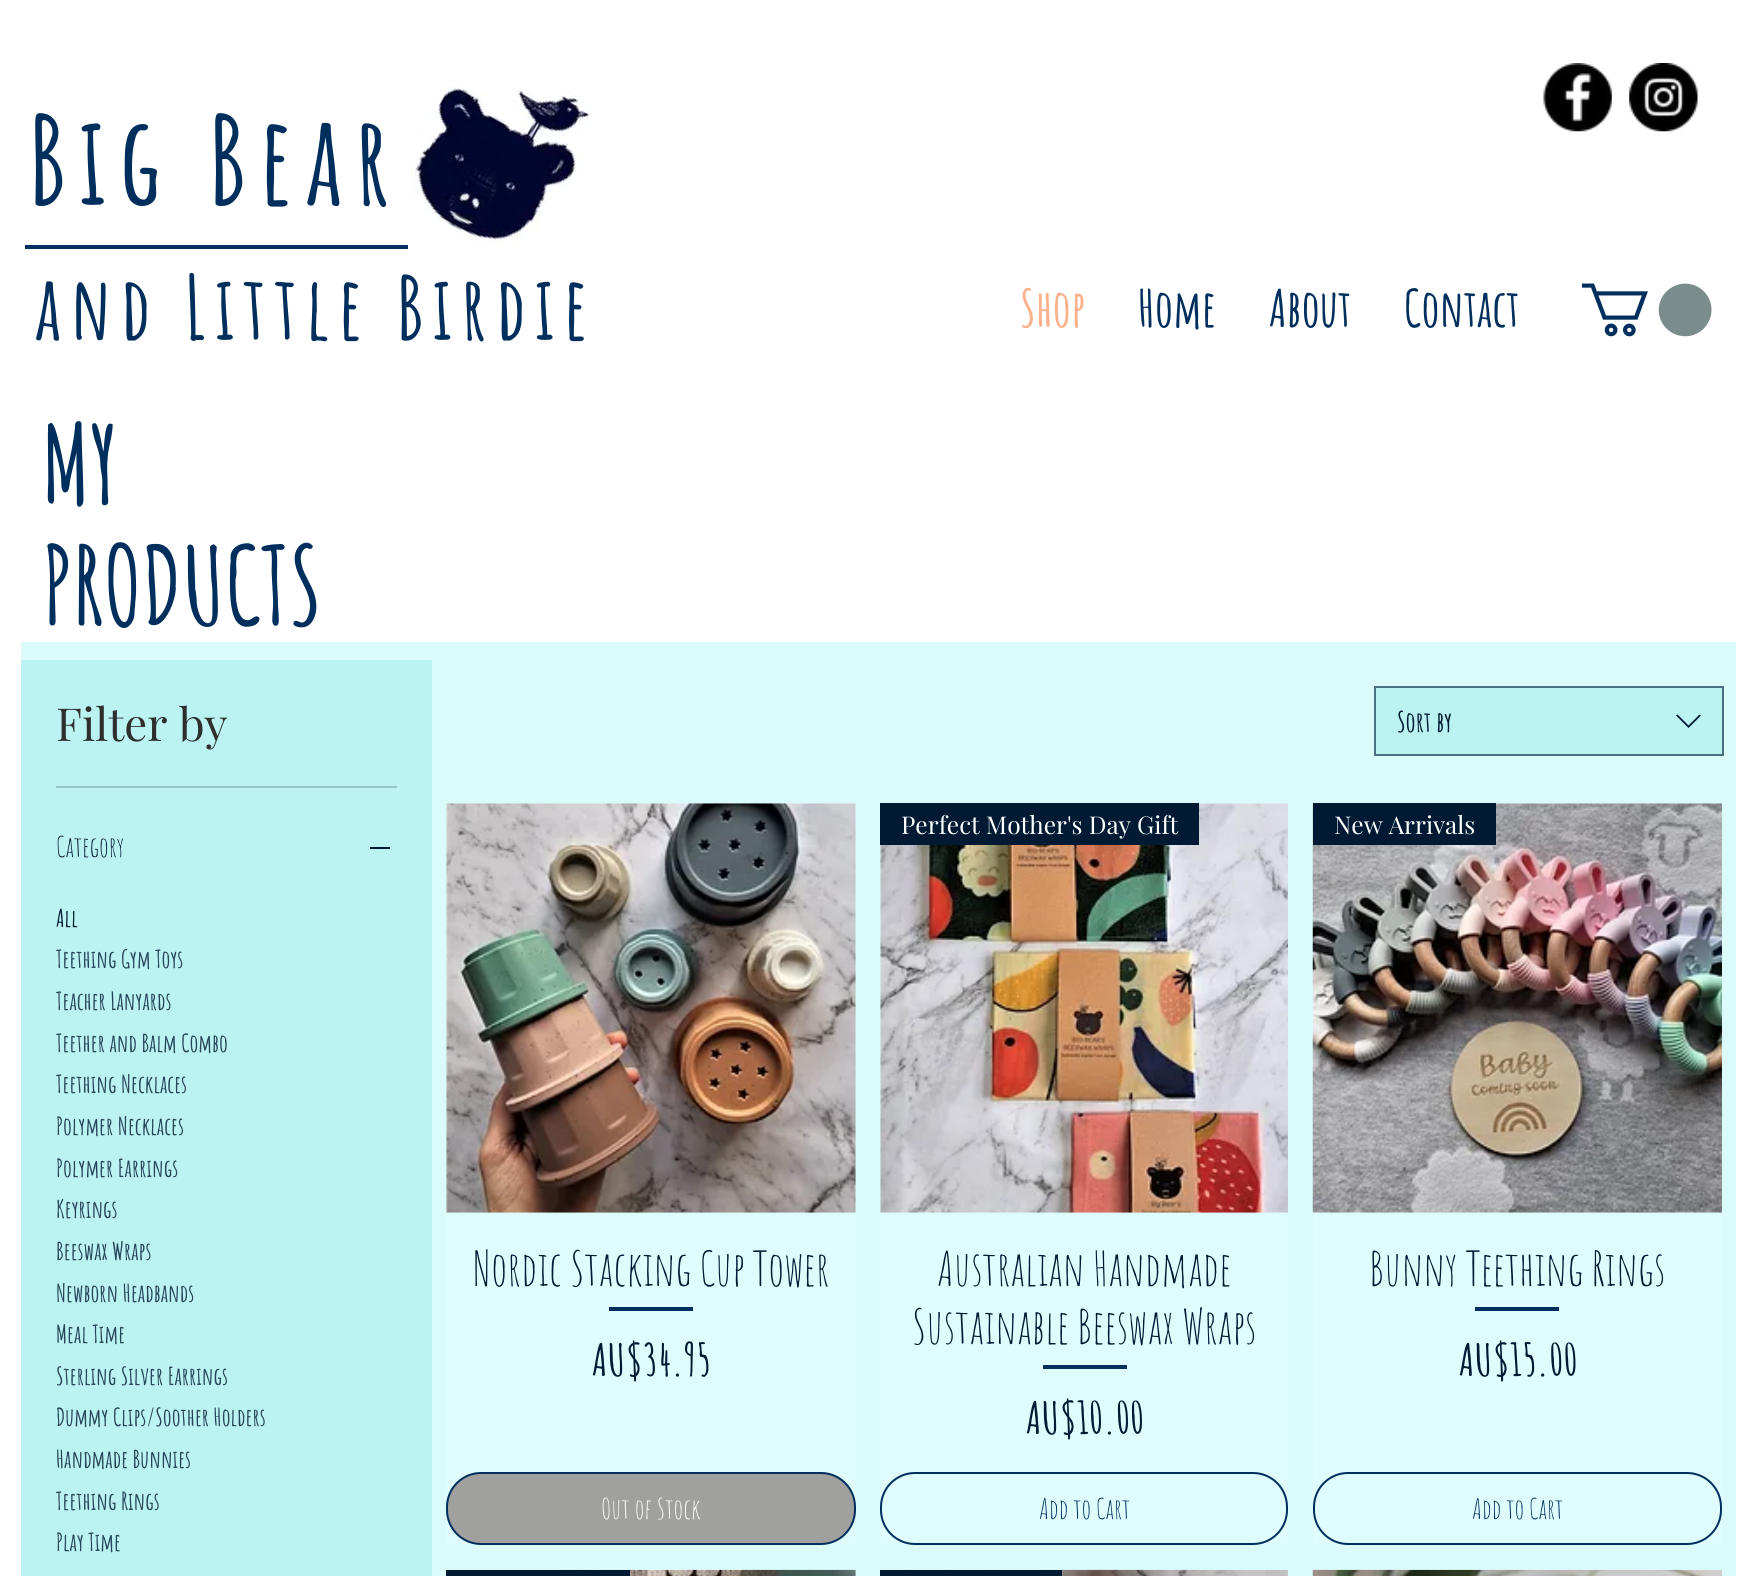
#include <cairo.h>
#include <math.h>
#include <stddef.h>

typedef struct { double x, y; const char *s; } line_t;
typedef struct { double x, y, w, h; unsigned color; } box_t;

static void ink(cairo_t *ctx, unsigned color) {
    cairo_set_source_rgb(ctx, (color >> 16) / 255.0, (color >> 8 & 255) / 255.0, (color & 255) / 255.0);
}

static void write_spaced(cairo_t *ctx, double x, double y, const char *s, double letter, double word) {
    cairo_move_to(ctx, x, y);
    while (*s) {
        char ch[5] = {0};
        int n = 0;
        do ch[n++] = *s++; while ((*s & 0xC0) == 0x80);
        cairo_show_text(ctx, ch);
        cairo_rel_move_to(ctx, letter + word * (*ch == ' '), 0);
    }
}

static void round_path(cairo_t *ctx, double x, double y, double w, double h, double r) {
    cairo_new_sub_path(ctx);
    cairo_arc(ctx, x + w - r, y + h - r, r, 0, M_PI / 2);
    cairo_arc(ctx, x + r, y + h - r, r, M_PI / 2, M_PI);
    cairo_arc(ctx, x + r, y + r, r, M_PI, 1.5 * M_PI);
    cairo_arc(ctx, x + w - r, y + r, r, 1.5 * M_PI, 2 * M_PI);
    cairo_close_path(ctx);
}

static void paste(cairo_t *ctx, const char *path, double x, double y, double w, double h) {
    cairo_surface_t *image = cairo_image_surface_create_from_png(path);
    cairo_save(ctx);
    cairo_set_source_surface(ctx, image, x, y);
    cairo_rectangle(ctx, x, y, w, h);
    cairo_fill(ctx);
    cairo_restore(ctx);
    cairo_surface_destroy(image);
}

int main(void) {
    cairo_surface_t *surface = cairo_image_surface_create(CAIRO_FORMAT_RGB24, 1757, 1576);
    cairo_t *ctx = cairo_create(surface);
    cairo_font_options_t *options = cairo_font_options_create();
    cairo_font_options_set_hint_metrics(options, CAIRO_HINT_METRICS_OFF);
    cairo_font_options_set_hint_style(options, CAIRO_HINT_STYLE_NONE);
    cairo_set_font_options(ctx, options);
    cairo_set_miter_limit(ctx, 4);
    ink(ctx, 0xFFFFFF);
    cairo_paint(ctx);
    cairo_select_font_face(ctx, "Amatic SC", CAIRO_FONT_SLANT_NORMAL, CAIRO_FONT_WEIGHT_BOLD);
    cairo_set_font_size(ctx, 122.5);
    ink(ctx, 0x002E5D);
    write_spaced(ctx, 28, 205, "Big Bear", 12.25, 0);
    paste(ctx, "media/1.png", 410, 86, 180, 161);
    paste(ctx, "media/2.png", 1543, 63, 69, 69);
    paste(ctx, "media/3.png", 1629, 63, 69, 69);
    cairo_rectangle(ctx, 25, 245, 383, 4);
    cairo_fill(ctx);
    cairo_set_font_size(ctx, 87.5);
    write_spaced(ctx, 35, 340, "and Little Birdie", 8.75, 0);
    cairo_set_font_size(ctx, 51);
    ink(ctx, 0xFCB08C);
    cairo_move_to(ctx, 1020, 327);
    cairo_show_text(ctx, "Shop");
    ink(ctx, 0x002E5D);
    {
        static const line_t items[] = {
            {1138, 327, "Home"},
            {1269, 327, "About"},
            {1404, 327, "Contact"},
        };
        for (size_t i = 0; i < sizeof items / sizeof *items; i++) {
            cairo_move_to(ctx, items[i].x, items[i].y);
            cairo_show_text(ctx, items[i].s);
        }
    }
    paste(ctx, "media/4.png", 1582, 283, 130, 54);
    cairo_set_font_size(ctx, 107);
    cairo_move_to(ctx, 42, 504);
    cairo_show_text(ctx, "MY");
    cairo_move_to(ctx, 42, 625);
    cairo_show_text(ctx, "PRODUCTS");
    {
        static const box_t items[] = {
            {21, 642, 1715, 934, 0xDBFBFB},
            {21, 660, 411, 916, 0xBBF2F2},
            {56, 786, 341, 2, 0x96C7CC},
        };
        for (size_t i = 0; i < sizeof items / sizeof *items; i++) {
            ink(ctx, items[i].color);
            cairo_rectangle(ctx, items[i].x, items[i].y, items[i].w, items[i].h);
            cairo_fill(ctx);
        }
    }
    cairo_select_font_face(ctx, "Playfair Display", CAIRO_FONT_SLANT_NORMAL, CAIRO_FONT_WEIGHT_NORMAL);
    cairo_set_font_size(ctx, 45.5);
    ink(ctx, 0x2F2E2E);
    cairo_move_to(ctx, 56, 741);
    cairo_show_text(ctx, "Filter by");
    cairo_select_font_face(ctx, "Amatic SC", CAIRO_FONT_SLANT_NORMAL, CAIRO_FONT_WEIGHT_NORMAL);
    cairo_set_font_size(ctx, 28);
    ink(ctx, 0x001A33);
    cairo_move_to(ctx, 56, 857);
    cairo_show_text(ctx, "Category");
    cairo_rectangle(ctx, 370, 847, 20, 2);
    cairo_fill(ctx);
    cairo_select_font_face(ctx, "Amatic SC", CAIRO_FONT_SLANT_NORMAL, CAIRO_FONT_WEIGHT_BOLD);
    cairo_set_font_size(ctx, 24.5);
    cairo_move_to(ctx, 56, 927);
    cairo_show_text(ctx, "All");
    ink(ctx, 0x254559);
    {
        static const line_t items[] = {
            {56, 968, "Teething Gym Toys"},
            {56, 1010, "Teacher Lanyards"},
            {56, 1052, "Teether and Balm Combo"},
            {56, 1093, "Teething Necklaces"},
            {56, 1135, "Polymer Necklaces"},
            {56, 1177, "Polymer Earrings"},
            {56, 1218, "Keyrings"},
            {56, 1260, "Beeswax Wraps"},
            {56, 1302, "Newborn Headbands"},
            {56, 1343, "Meal Time"},
            {56, 1385, "Sterling Silver Earrings"},
            {56, 1426, "Dummy Clips/Soother Holders"},
            {56, 1468, "Handmade Bunnies"},
            {56, 1510, "Teething Rings"},
            {56, 1551, "Play Time"},
        };
        for (size_t i = 0; i < sizeof items / sizeof *items; i++) {
            cairo_move_to(ctx, items[i].x, items[i].y);
            cairo_show_text(ctx, items[i].s);
        }
    }
    ink(ctx, 0xBBF2F2);
    cairo_rectangle(ctx, 1375, 687, 348, 68);
    cairo_fill_preserve(ctx);
    ink(ctx, 0x4B707F);
    cairo_stroke(ctx);
    cairo_set_font_size(ctx, 28);
    ink(ctx, 0x001A33);
    cairo_move_to(ctx, 1397, 732);
    cairo_show_text(ctx, "Sort by");
    cairo_set_fill_rule(ctx, CAIRO_FILL_RULE_EVEN_ODD);
    cairo_new_path(ctx);
    cairo_move_to(ctx, 1699.5, 714.5);
    cairo_line_to(ctx, 1701, 715.5);
    cairo_line_to(ctx, 1688.5, 728);
    cairo_line_to(ctx, 1676, 715.5);
    cairo_line_to(ctx, 1677.5, 714.5);
    cairo_line_to(ctx, 1688.5, 725.5);
    cairo_close_path(ctx);
    cairo_fill(ctx);
    ink(ctx, 0xDEFCFC);
    cairo_rectangle(ctx, 446, 803, 410, 742);
    cairo_fill(ctx);
    paste(ctx, "media/5.png", 446, 803, 410, 410);
    cairo_select_font_face(ctx, "Amatic SC", CAIRO_FONT_SLANT_NORMAL, CAIRO_FONT_WEIGHT_NORMAL);
    cairo_set_font_size(ctx, 47.25);
    ink(ctx, 0x001A33);
    cairo_move_to(ctx, 473, 1286);
    cairo_show_text(ctx, "Nordic Stacking Cup Tower");
    ink(ctx, 0x002E5D);
    cairo_rectangle(ctx, 609, 1307, 84, 4);
    cairo_fill(ctx);
    cairo_select_font_face(ctx, "Amatic SC", CAIRO_FONT_SLANT_NORMAL, CAIRO_FONT_WEIGHT_BOLD);
    cairo_set_font_size(ctx, 44);
    ink(ctx, 0x001A33);
    cairo_move_to(ctx, 592, 1376);
    cairo_show_text(ctx, "AU$34.95");
    ink(ctx, 0xA0A09F);
    round_path(ctx, 447, 1473, 408, 71, 34);
    cairo_fill_preserve(ctx);
    ink(ctx, 0x002E5D);
    cairo_stroke(ctx);
    cairo_select_font_face(ctx, "Amatic SC", CAIRO_FONT_SLANT_NORMAL, CAIRO_FONT_WEIGHT_NORMAL);
    cairo_set_font_size(ctx, 28);
    ink(ctx, 0xFFFFFF);
    cairo_move_to(ctx, 601, 1519);
    cairo_show_text(ctx, "Out of Stock");
    ink(ctx, 0xDEFCFC);
    cairo_rectangle(ctx, 880, 803, 408, 742);
    cairo_fill(ctx);
    paste(ctx, "media/6.png", 880, 803, 408, 410);
    ink(ctx, 0x001A33);
    cairo_rectangle(ctx, 880, 803, 319, 42);
    cairo_fill(ctx);
    cairo_select_font_face(ctx, "Playfair Display", CAIRO_FONT_SLANT_NORMAL, CAIRO_FONT_WEIGHT_NORMAL);
    cairo_set_font_size(ctx, 24.5);
    ink(ctx, 0xFFFFFF);
    cairo_move_to(ctx, 901, 834);
    cairo_show_text(ctx, "Perfect Mother's Day Gift");
    cairo_select_font_face(ctx, "Amatic SC", CAIRO_FONT_SLANT_NORMAL, CAIRO_FONT_WEIGHT_NORMAL);
    cairo_set_font_size(ctx, 47.25);
    ink(ctx, 0x001A33);
    cairo_move_to(ctx, 937, 1286);
    cairo_show_text(ctx, "Australian Handmade");
    cairo_move_to(ctx, 912, 1344);
    cairo_show_text(ctx, "Sustainable Beeswax Wraps");
    ink(ctx, 0x002E5D);
    cairo_rectangle(ctx, 1043, 1365, 84, 4);
    cairo_fill(ctx);
    cairo_select_font_face(ctx, "Amatic SC", CAIRO_FONT_SLANT_NORMAL, CAIRO_FONT_WEIGHT_BOLD);
    cairo_set_font_size(ctx, 44);
    ink(ctx, 0x001A33);
    cairo_move_to(ctx, 1026, 1434);
    cairo_show_text(ctx, "AU$10.00");
    round_path(ctx, 881, 1473, 406, 71, 34);
    ink(ctx, 0x002E5D);
    cairo_stroke(ctx);
    cairo_select_font_face(ctx, "Amatic SC", CAIRO_FONT_SLANT_NORMAL, CAIRO_FONT_WEIGHT_NORMAL);
    cairo_set_font_size(ctx, 28);
    cairo_move_to(ctx, 1039, 1519);
    cairo_show_text(ctx, "Add to Cart");
    ink(ctx, 0xDEFCFC);
    cairo_rectangle(ctx, 1313, 803, 409, 742);
    cairo_fill(ctx);
    paste(ctx, "media/7.png", 1312, 803, 410, 410);
    ink(ctx, 0x001A33);
    cairo_rectangle(ctx, 1313, 803, 183, 42);
    cairo_fill(ctx);
    cairo_select_font_face(ctx, "Playfair Display", CAIRO_FONT_SLANT_NORMAL, CAIRO_FONT_WEIGHT_NORMAL);
    cairo_set_font_size(ctx, 24.5);
    ink(ctx, 0xFFFFFF);
    cairo_move_to(ctx, 1334, 834);
    cairo_show_text(ctx, "New Arrivals");
    cairo_select_font_face(ctx, "Amatic SC", CAIRO_FONT_SLANT_NORMAL, CAIRO_FONT_WEIGHT_NORMAL);
    cairo_set_font_size(ctx, 47.25);
    ink(ctx, 0x001A33);
    cairo_move_to(ctx, 1369, 1286);
    cairo_show_text(ctx, "Bunny Teething Rings");
    ink(ctx, 0x002E5D);
    cairo_rectangle(ctx, 1475, 1307, 84, 4);
    cairo_fill(ctx);
    cairo_select_font_face(ctx, "Amatic SC", CAIRO_FONT_SLANT_NORMAL, CAIRO_FONT_WEIGHT_BOLD);
    cairo_set_font_size(ctx, 44);
    ink(ctx, 0x001A33);
    cairo_move_to(ctx, 1459, 1376);
    cairo_show_text(ctx, "AU$15.00");
    round_path(ctx, 1314, 1473, 407, 71, 34);
    ink(ctx, 0x002E5D);
    cairo_stroke(ctx);
    cairo_select_font_face(ctx, "Amatic SC", CAIRO_FONT_SLANT_NORMAL, CAIRO_FONT_WEIGHT_NORMAL);
    cairo_set_font_size(ctx, 28);
    cairo_move_to(ctx, 1472, 1519);
    cairo_show_text(ctx, "Add to Cart");
    paste(ctx, "media/8.png", 446, 1569, 410, 7);
    ink(ctx, 0x001A33);
    cairo_rectangle(ctx, 446, 1570, 184, 6);
    cairo_fill(ctx);
    paste(ctx, "media/9.png", 880, 1569, 408, 7);
    cairo_rectangle(ctx, 880, 1570, 182, 6);
    cairo_fill(ctx);
    paste(ctx, "media/10.png", 1312, 1569, 410, 7);
    cairo_surface_write_to_png(surface, "image.png");
    cairo_font_options_destroy(options);
    cairo_destroy(ctx);
    cairo_surface_destroy(surface);
    return 0;
}
